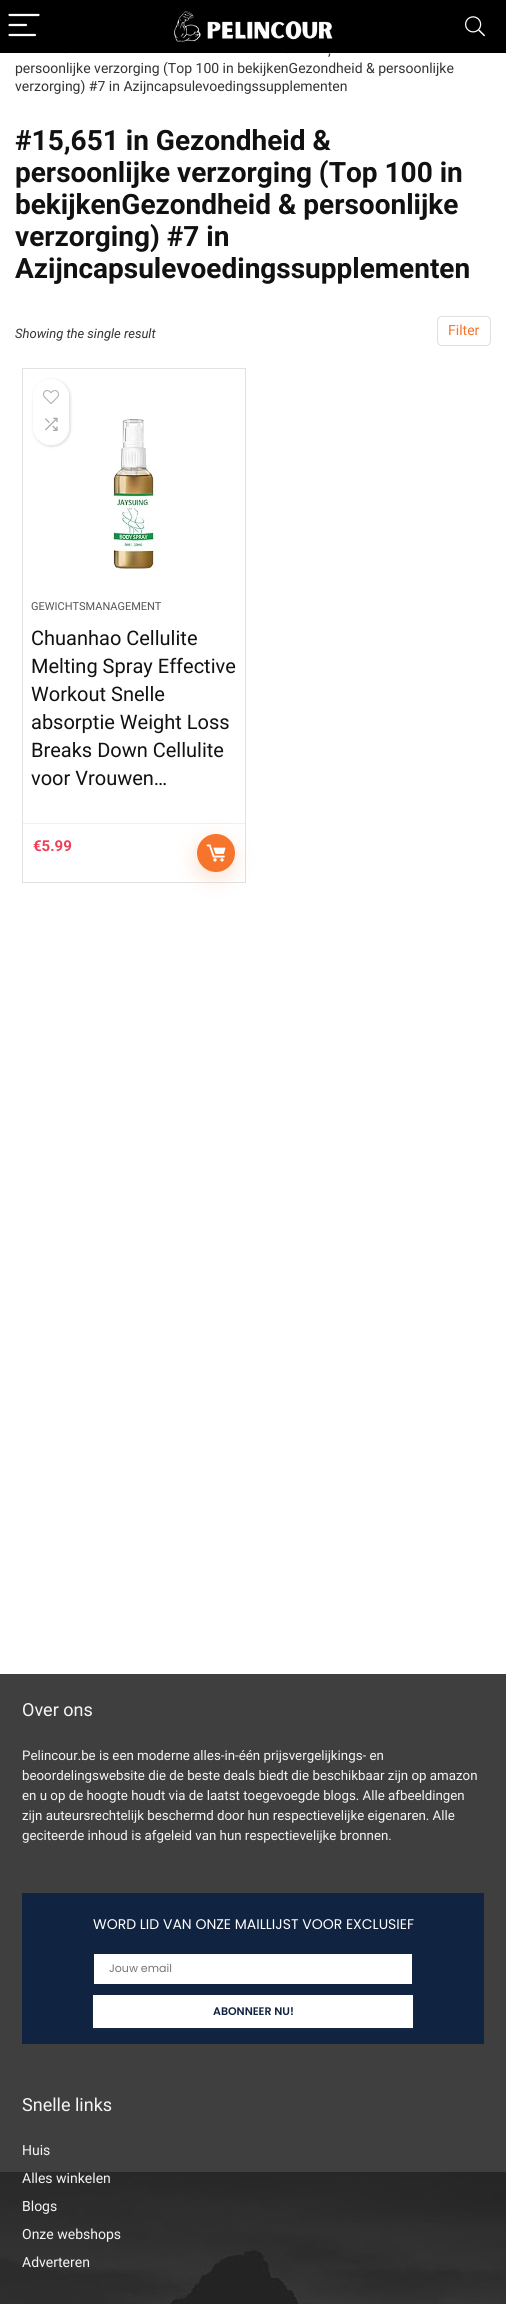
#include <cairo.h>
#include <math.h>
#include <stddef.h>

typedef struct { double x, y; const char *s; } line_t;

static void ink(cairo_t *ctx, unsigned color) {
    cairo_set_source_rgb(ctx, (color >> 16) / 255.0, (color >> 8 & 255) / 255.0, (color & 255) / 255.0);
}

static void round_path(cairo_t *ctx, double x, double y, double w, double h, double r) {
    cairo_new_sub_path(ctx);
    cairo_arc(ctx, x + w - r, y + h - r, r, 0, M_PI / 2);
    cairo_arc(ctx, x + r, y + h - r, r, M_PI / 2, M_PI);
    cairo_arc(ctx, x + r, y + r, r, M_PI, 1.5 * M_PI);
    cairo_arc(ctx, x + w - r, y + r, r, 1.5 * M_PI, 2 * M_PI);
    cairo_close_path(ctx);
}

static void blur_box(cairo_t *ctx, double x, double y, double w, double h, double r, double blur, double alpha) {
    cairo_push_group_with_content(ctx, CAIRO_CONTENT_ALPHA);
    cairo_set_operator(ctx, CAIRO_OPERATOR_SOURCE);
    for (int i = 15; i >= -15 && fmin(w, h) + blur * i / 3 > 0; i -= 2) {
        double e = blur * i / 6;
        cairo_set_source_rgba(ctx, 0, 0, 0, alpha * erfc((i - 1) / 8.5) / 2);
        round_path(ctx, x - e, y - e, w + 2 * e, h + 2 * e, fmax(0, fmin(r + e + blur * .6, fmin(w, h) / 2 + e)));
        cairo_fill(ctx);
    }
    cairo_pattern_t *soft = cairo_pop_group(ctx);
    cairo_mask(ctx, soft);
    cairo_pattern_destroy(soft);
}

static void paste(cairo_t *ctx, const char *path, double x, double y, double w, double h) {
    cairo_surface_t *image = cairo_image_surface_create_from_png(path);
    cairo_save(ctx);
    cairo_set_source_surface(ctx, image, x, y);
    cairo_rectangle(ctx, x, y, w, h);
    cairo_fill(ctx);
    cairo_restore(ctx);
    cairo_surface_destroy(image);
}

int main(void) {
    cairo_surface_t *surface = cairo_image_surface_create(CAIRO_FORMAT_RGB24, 506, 2304);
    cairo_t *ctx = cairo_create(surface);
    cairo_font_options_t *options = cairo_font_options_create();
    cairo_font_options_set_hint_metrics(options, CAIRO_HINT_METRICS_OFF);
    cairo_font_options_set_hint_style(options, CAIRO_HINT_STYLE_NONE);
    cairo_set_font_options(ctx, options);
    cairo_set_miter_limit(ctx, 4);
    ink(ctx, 0xFFFFFF);
    cairo_paint(ctx);
    ink(ctx, 0x000000);
    cairo_rectangle(ctx, 0, 0, 506, 53);
    cairo_fill(ctx);
    cairo_new_path(ctx);
    cairo_move_to(ctx, 9.5, 15);
    cairo_line_to(ctx, 38.5, 15);
    cairo_move_to(ctx, 9.5, 25);
    cairo_line_to(ctx, 26, 25);
    cairo_move_to(ctx, 9.5, 35);
    cairo_line_to(ctx, 35, 35);
    ink(ctx, 0xFFFFFF);
    cairo_set_line_width(ctx, 2.2);
    cairo_set_line_cap(ctx, CAIRO_LINE_CAP_ROUND);
    cairo_stroke(ctx);
    paste(ctx, "media/1.png", 174, 10, 159, 32);
    paste(ctx, "media/2.png", 465, 16, 20, 21);
    paste(ctx, "media/3.png", 65, 53, 2, 1);
    paste(ctx, "media/3.png", 287, 53, 2, 1);
    cairo_select_font_face(ctx, "Roboto", CAIRO_FONT_SLANT_NORMAL, CAIRO_FONT_WEIGHT_NORMAL);
    cairo_set_font_size(ctx, 14);
    ink(ctx, 0x333333);
    {
        static const line_t items[] = {
            {328, 55, ","},
            {15, 73, "persoonlijke verzorging (Top 100 in bekijkenGezondheid & persoonlijke"},
            {15, 91, "verzorging) #7 in Azijncapsulevoedingssupplementen"},
        };
        for (size_t i = 0; i < sizeof items / sizeof *items; i++) {
            cairo_move_to(ctx, items[i].x, items[i].y);
            cairo_show_text(ctx, items[i].s);
        }
    }
    cairo_select_font_face(ctx, "Roboto", CAIRO_FONT_SLANT_NORMAL, CAIRO_FONT_WEIGHT_BOLD);
    cairo_set_font_size(ctx, 28);
    ink(ctx, 0x111111);
    {
        static const line_t items[] = {
            {15, 150, "#15,651 in Gezondheid &"},
            {15, 182, "persoonlijke verzorging (Top 100 in"},
            {15, 214, "bekijkenGezondheid & persoonlijke"},
            {15, 246, "verzorging) #7 in"},
            {15, 278, "Azijncapsulevoedingssupplementen"},
        };
        for (size_t i = 0; i < sizeof items / sizeof *items; i++) {
            cairo_move_to(ctx, items[i].x, items[i].y);
            cairo_show_text(ctx, items[i].s);
        }
    }
    cairo_select_font_face(ctx, "Roboto", CAIRO_FONT_SLANT_ITALIC, CAIRO_FONT_WEIGHT_NORMAL);
    cairo_set_font_size(ctx, 13);
    ink(ctx, 0x333333);
    cairo_move_to(ctx, 15, 338);
    cairo_show_text(ctx, "Showing the single result");
    round_path(ctx, 437.5, 316.5, 53, 29, 4.5);
    ink(ctx, 0xDCE0E0);
    cairo_set_line_width(ctx, 1);
    cairo_set_line_cap(ctx, CAIRO_LINE_CAP_BUTT);
    cairo_stroke(ctx);
    cairo_select_font_face(ctx, "Roboto", CAIRO_FONT_SLANT_NORMAL, CAIRO_FONT_WEIGHT_NORMAL);
    cairo_set_font_size(ctx, 14);
    ink(ctx, 0xF7742C);
    cairo_move_to(ctx, 448, 335);
    cairo_show_text(ctx, "Filter");
    cairo_rectangle(ctx, 22.5, 368.5, 223, 514);
    ink(ctx, 0xE2E2E2);
    cairo_stroke(ctx);
    cairo_save(ctx);
    cairo_set_fill_rule(ctx, CAIRO_FILL_RULE_EVEN_ODD);
    cairo_new_path(ctx);
    cairo_move_to(ctx, 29, 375);
    cairo_line_to(ctx, 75, 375);
    cairo_line_to(ctx, 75, 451);
    cairo_line_to(ctx, 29, 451);
    cairo_close_path(ctx);
    cairo_move_to(ctx, 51, 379);
    cairo_curve_to(ctx, 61, 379, 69, 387, 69, 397);
    cairo_line_to(ctx, 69, 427);
    cairo_curve_to(ctx, 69, 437, 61, 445, 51, 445);
    cairo_curve_to(ctx, 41, 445, 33, 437, 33, 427);
    cairo_line_to(ctx, 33, 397);
    cairo_curve_to(ctx, 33, 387, 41, 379, 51, 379);
    cairo_close_path(ctx);
    cairo_clip(ctx);
    ink(ctx, 0x000000);
    blur_box(ctx, 33, 379, 38, 68, 19, 1, 0.1);
    cairo_restore(ctx);
    cairo_set_source_rgba(ctx, 1, 1, 1, 0.78);
    round_path(ctx, 33, 379, 36, 66, 18);
    cairo_fill(ctx);
    paste(ctx, "media/4.png", 43, 390, 16, 14);
    paste(ctx, "media/5.png", 45, 417, 13, 14);
    paste(ctx, "media/6.png", 111, 419, 48, 151);
    cairo_set_font_size(ctx, 11);
    ink(ctx, 0x555555);
    cairo_move_to(ctx, 31, 610);
    cairo_show_text(ctx, "GEWICHTSMANAGEMENT");
    cairo_set_font_size(ctx, 20);
    ink(ctx, 0x111111);
    {
        static const line_t items[] = {
            {31, 645, "Chuanhao Cellulite"},
            {31, 673, "Melting Spray Effective"},
            {31, 701, "Workout Snelle"},
            {31, 729, "absorptie Weight Loss"},
            {31, 757, "Breaks Down Cellulite"},
            {31, 785, "voor Vrouwen…"},
        };
        for (size_t i = 0; i < sizeof items / sizeof *items; i++) {
            cairo_move_to(ctx, items[i].x, items[i].y);
            cairo_show_text(ctx, items[i].s);
        }
    }
    ink(ctx, 0xF0F0F0);
    cairo_rectangle(ctx, 23, 823, 222, 1);
    cairo_fill(ctx);
    cairo_select_font_face(ctx, "Roboto", CAIRO_FONT_SLANT_NORMAL, CAIRO_FONT_WEIGHT_BOLD);
    cairo_set_font_size(ctx, 15);
    ink(ctx, 0xF04057);
    cairo_move_to(ctx, 33, 851);
    cairo_show_text(ctx, "€5.99");
    ink(ctx, 0xF7742C);
    blur_box(ctx, 196, 840, 38, 38, 19, 9.5, 0.2);
    ink(ctx, 0xF7742C);
    cairo_arc(ctx, 216, 853, 19, 0, 2 * M_PI);
    cairo_fill(ctx);
    paste(ctx, "media/7.png", 206, 844, 20, 18);
    ink(ctx, 0x3F3F3F);
    cairo_rectangle(ctx, 0, 1674, 506, 498);
    cairo_fill(ctx);
    paste(ctx, "media/8.png", 0, 2172, 506, 132);
    cairo_select_font_face(ctx, "Roboto", CAIRO_FONT_SLANT_NORMAL, CAIRO_FONT_WEIGHT_NORMAL);
    cairo_set_font_size(ctx, 18);
    ink(ctx, 0xF5F5F5);
    cairo_move_to(ctx, 22, 1716);
    cairo_show_text(ctx, "Over ons");
    cairo_set_font_size(ctx, 13.3);
    {
        static const line_t items[] = {
            {22, 1760, "Pelincour.be is een moderne alles-in-één prijsvergelijkings- en"},
            {22, 1780, "beoordelingswebsite die de beste deals biedt die beschikbaar zijn op amazon"},
            {22, 1800, "en u op de hoogte houdt via de laatst toegevoegde blogs. Alle afbeeldingen"},
            {22, 1820, "zijn auteursrechtelijk beschermd door hun respectievelijke eigenaren. Alle"},
            {22, 1840, "geciteerde inhoud is afgeleid van hun respectievelijke bronnen."},
        };
        for (size_t i = 0; i < sizeof items / sizeof *items; i++) {
            cairo_move_to(ctx, items[i].x, items[i].y);
            cairo_show_text(ctx, items[i].s);
        }
    }
    ink(ctx, 0x102341);
    cairo_rectangle(ctx, 22, 1893, 462, 151);
    cairo_fill(ctx);
    cairo_select_font_face(ctx, "Poppins", CAIRO_FONT_SLANT_NORMAL, CAIRO_FONT_WEIGHT_NORMAL);
    cairo_set_font_size(ctx, 14);
    ink(ctx, 0xFFFFFF);
    cairo_move_to(ctx, 93, 1929);
    cairo_show_text(ctx, "WORD LID VAN ONZE MAILLIJST VOOR EXCLUSIEF");
    cairo_rectangle(ctx, 94, 1954, 318, 30);
    cairo_fill(ctx);
    cairo_set_font_size(ctx, 11);
    ink(ctx, 0x757575);
    cairo_move_to(ctx, 109, 1972);
    cairo_show_text(ctx, "Jouw email");
    ink(ctx, 0x3C4043);
    blur_box(ctx, 93, 1996, 320, 33, 0, 1, 0.3);
    ink(ctx, 0xFFFFFF);
    cairo_rectangle(ctx, 93, 1995, 320, 33);
    cairo_fill(ctx);
    cairo_select_font_face(ctx, "Poppins SemiBold", CAIRO_FONT_SLANT_NORMAL, CAIRO_FONT_WEIGHT_NORMAL);
    ink(ctx, 0x102341);
    cairo_move_to(ctx, 213, 2015);
    cairo_show_text(ctx, "ABONNEER NU!");
    cairo_select_font_face(ctx, "Roboto", CAIRO_FONT_SLANT_NORMAL, CAIRO_FONT_WEIGHT_NORMAL);
    cairo_set_font_size(ctx, 18);
    ink(ctx, 0xF5F5F5);
    cairo_move_to(ctx, 22, 2111);
    cairo_show_text(ctx, "Snelle links");
    cairo_set_font_size(ctx, 14);
    {
        static const line_t items[] = {
            {22, 2155, "Huis"},
            {22, 2183, "Alles winkelen"},
            {22, 2211, "Blogs"},
            {22, 2239, "Onze webshops"},
            {22, 2267, "Adverteren"},
        };
        for (size_t i = 0; i < sizeof items / sizeof *items; i++) {
            cairo_move_to(ctx, items[i].x, items[i].y);
            cairo_show_text(ctx, items[i].s);
        }
    }
    cairo_surface_write_to_png(surface, "image.png");
    cairo_font_options_destroy(options);
    cairo_destroy(ctx);
    cairo_surface_destroy(surface);
    return 0;
}
